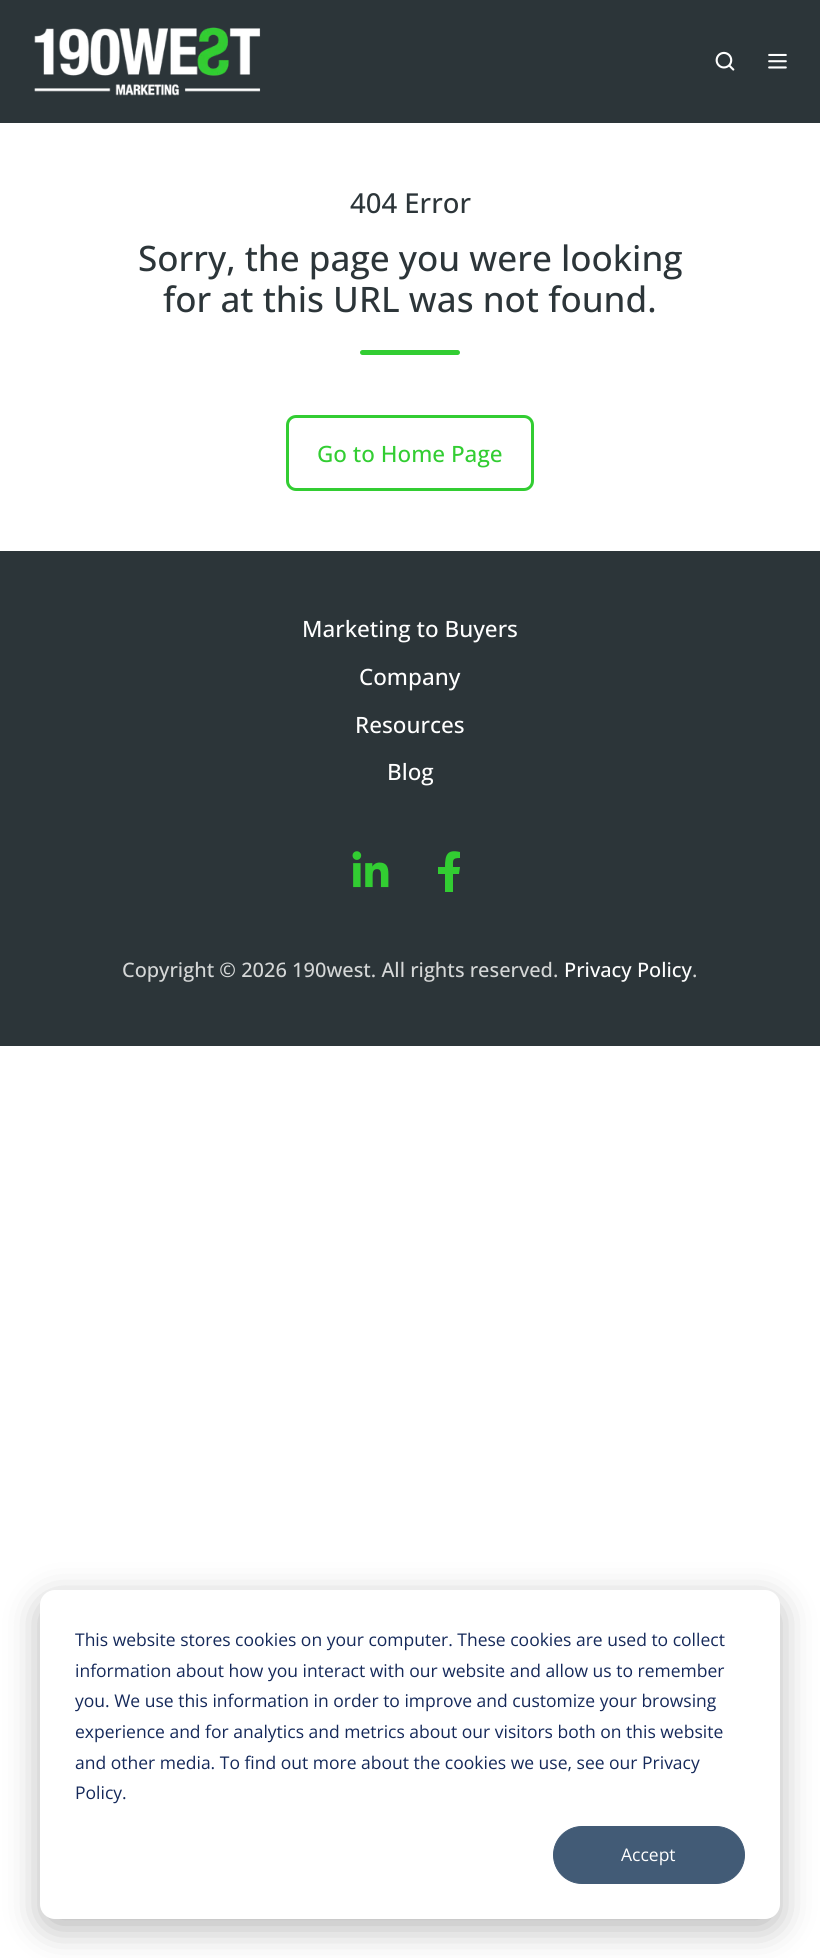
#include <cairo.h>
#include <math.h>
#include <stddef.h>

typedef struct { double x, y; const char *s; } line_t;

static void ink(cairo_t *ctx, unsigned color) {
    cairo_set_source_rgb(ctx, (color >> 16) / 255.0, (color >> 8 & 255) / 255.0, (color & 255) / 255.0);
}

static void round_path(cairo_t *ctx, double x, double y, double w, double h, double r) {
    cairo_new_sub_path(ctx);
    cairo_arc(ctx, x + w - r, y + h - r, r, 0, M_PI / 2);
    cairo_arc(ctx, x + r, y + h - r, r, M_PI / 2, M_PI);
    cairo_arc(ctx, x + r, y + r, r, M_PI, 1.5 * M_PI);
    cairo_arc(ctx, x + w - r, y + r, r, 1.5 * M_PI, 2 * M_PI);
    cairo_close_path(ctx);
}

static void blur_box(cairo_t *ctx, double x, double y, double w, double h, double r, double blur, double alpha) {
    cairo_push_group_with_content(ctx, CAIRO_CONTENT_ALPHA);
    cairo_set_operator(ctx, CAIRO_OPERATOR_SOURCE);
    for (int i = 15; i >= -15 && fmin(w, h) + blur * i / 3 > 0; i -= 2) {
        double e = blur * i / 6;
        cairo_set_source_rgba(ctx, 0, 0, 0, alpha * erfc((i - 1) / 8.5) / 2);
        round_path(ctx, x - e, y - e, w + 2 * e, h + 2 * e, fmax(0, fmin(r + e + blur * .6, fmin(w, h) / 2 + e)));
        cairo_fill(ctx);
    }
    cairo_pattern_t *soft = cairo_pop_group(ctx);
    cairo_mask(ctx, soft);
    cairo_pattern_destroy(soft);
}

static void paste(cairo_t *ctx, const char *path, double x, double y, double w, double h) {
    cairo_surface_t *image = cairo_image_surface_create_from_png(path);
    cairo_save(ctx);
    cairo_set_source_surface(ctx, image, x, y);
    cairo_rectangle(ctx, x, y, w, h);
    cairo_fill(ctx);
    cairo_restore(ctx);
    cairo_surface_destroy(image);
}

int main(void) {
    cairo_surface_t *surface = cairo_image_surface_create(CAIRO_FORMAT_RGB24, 820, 1958);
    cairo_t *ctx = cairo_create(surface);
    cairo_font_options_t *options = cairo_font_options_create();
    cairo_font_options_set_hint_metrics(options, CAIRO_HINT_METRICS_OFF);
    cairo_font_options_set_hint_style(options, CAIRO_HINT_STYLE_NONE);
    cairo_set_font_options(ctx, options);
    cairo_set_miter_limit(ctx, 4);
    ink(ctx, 0xFFFFFF);
    cairo_paint(ctx);
    ink(ctx, 0x2C3539);
    cairo_rectangle(ctx, 0, 0, 820, 123);
    cairo_fill(ctx);
    paste(ctx, "media/1.png", 34, 27, 227, 69);
    paste(ctx, "media/2.png", 715, 51, 20, 20);
    paste(ctx, "media/3.png", 768, 53, 19, 16);
    cairo_select_font_face(ctx, "Open Sans Medium", CAIRO_FONT_SLANT_NORMAL, CAIRO_FONT_WEIGHT_NORMAL);
    cairo_set_font_size(ctx, 27.5);
    cairo_move_to(ctx, 350, 213);
    cairo_show_text(ctx, "404 Error");
    cairo_set_font_size(ctx, 35.1);
    cairo_move_to(ctx, 138, 271);
    cairo_show_text(ctx, "Sorry, the page you were looking");
    cairo_move_to(ctx, 163, 312);
    cairo_show_text(ctx, "for at this URL was not found.");
    ink(ctx, 0x32CD32);
    round_path(ctx, 360, 350, 100, 5, 2.5);
    cairo_fill(ctx);
    round_path(ctx, 287.5, 416.5, 245, 73, 8.5);
    cairo_set_line_width(ctx, 3);
    cairo_stroke(ctx);
    cairo_set_font_size(ctx, 22.5);
    cairo_move_to(ctx, 317, 462);
    cairo_show_text(ctx, "Go to Home Page");
    ink(ctx, 0x2C3539);
    cairo_rectangle(ctx, 0, 551, 820, 495);
    cairo_fill(ctx);
    ink(ctx, 0xFFFFFF);
    {
        static const line_t items[] = {
            {302, 637, "Marketing to Buyers"},
            {359, 685, "Company"},
            {355, 733, "Resources"},
            {387, 780, "Blog"},
        };
        for (size_t i = 0; i < sizeof items / sizeof *items; i++) {
            cairo_move_to(ctx, items[i].x, items[i].y);
            cairo_show_text(ctx, items[i].s);
        }
    }
    paste(ctx, "media/4.png", 352, 851, 37, 37);
    ink(ctx, 0x32CD32);
    cairo_new_path(ctx);
    cairo_move_to(ctx, 459, 874);
    cairo_line_to(ctx, 460, 867);
    cairo_line_to(ctx, 453, 867);
    cairo_curve_to(ctx, 453, 860, 452, 858, 460, 858);
    cairo_line_to(ctx, 460, 852);
    cairo_curve_to(ctx, 447, 849, 445, 855, 445, 867);
    cairo_line_to(ctx, 438, 867);
    cairo_line_to(ctx, 438, 874);
    cairo_line_to(ctx, 445, 874);
    cairo_line_to(ctx, 445, 892);
    cairo_line_to(ctx, 453, 892);
    cairo_line_to(ctx, 453, 874);
    cairo_close_path(ctx);
    cairo_fill(ctx);
    cairo_set_font_size(ctx, 20);
    ink(ctx, 0xD5D7D7);
    cairo_move_to(ctx, 122, 977);
    cairo_show_text(ctx, "Copyright © 2026 190west. All rights reserved.");
    ink(ctx, 0xFFFFFF);
    cairo_move_to(ctx, 564, 977);
    cairo_show_text(ctx, "Privacy Policy");
    ink(ctx, 0xD5D7D7);
    cairo_move_to(ctx, 692, 977);
    cairo_show_text(ctx, ".");
    ink(ctx, 0x000000);
    blur_box(ctx, 40, 1600, 740, 329, 15, 17.5, 0.28);
    ink(ctx, 0xFFFFFF);
    round_path(ctx, 40, 1590, 740, 329, 15);
    cairo_fill(ctx);
    cairo_select_font_face(ctx, "Open Sans", CAIRO_FONT_SLANT_NORMAL, CAIRO_FONT_WEIGHT_NORMAL);
    cairo_set_font_size(ctx, 17.5);
    ink(ctx, 0x15295A);
    {
        static const line_t items[] = {
            {75, 1646, "This website stores cookies on your computer. These cookies are used to collect"},
            {75, 1677, "information about how you interact with our website and allow us to remember"},
            {75, 1707, "you. We use this information in order to improve and customize your browsing"},
            {75, 1738, "experience and for analytics and metrics about our visitors both on this website"},
            {75, 1769, "and other media. To find out more about the cookies we use, see our Privacy"},
            {75, 1799, "Policy."},
        };
        for (size_t i = 0; i < sizeof items / sizeof *items; i++) {
            cairo_move_to(ctx, items[i].x, items[i].y);
            cairo_show_text(ctx, items[i].s);
        }
    }
    ink(ctx, 0x425B76);
    round_path(ctx, 553.5, 1826.5, 191, 57, 28.5);
    cairo_fill_preserve(ctx);
    cairo_set_line_width(ctx, 1);
    cairo_stroke(ctx);
    ink(ctx, 0xFFFFFF);
    cairo_move_to(ctx, 621, 1861);
    cairo_show_text(ctx, "Accept");
    cairo_surface_write_to_png(surface, "image.png");
    cairo_font_options_destroy(options);
    cairo_destroy(ctx);
    cairo_surface_destroy(surface);
    return 0;
}
